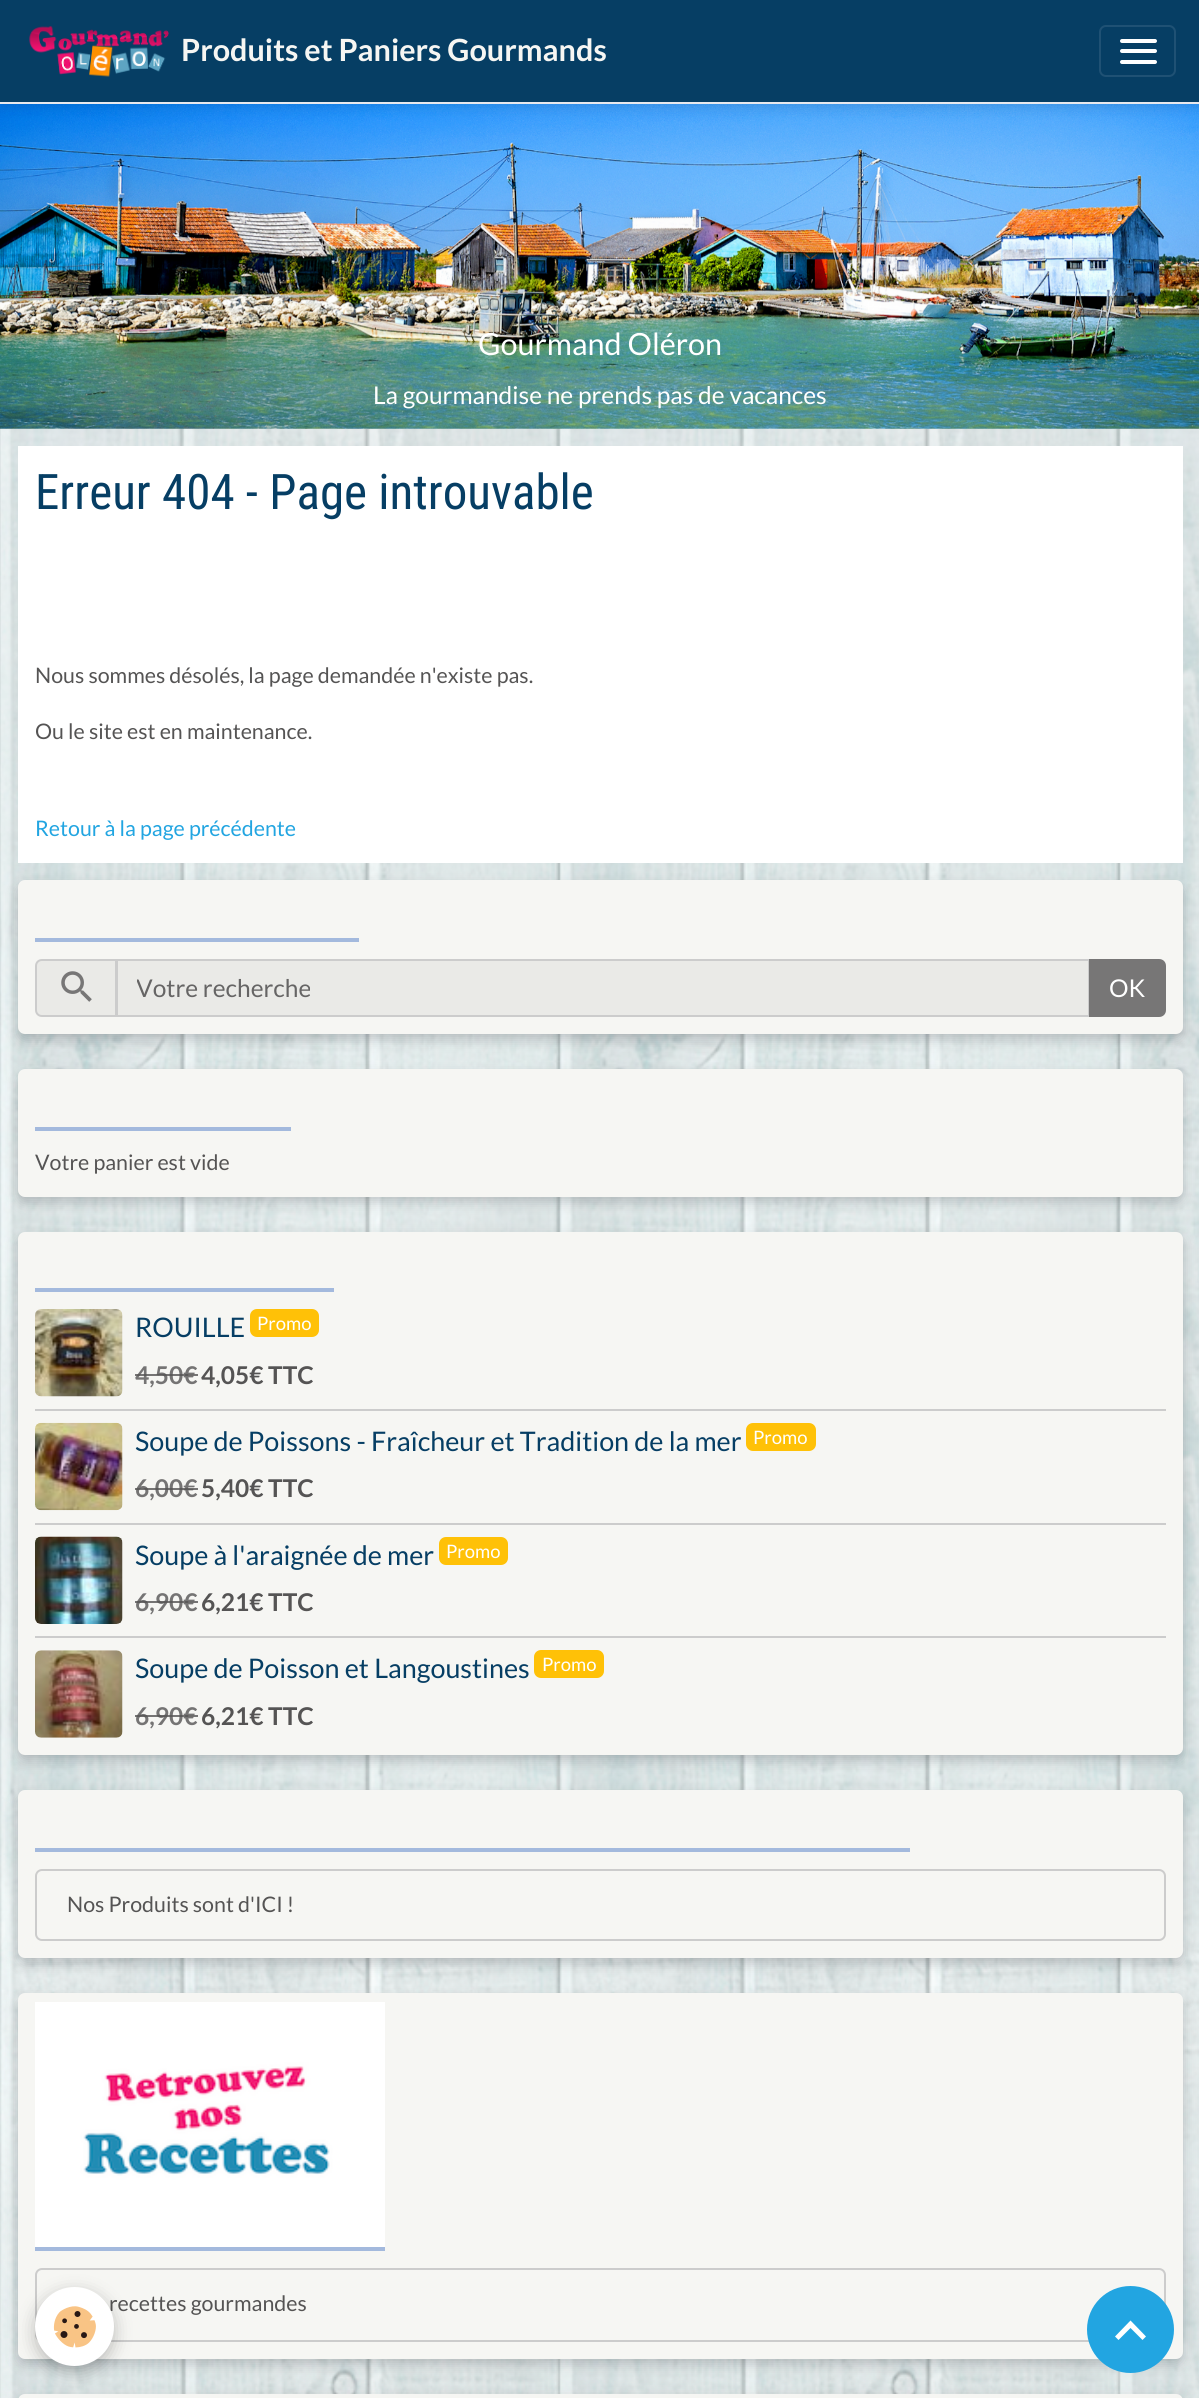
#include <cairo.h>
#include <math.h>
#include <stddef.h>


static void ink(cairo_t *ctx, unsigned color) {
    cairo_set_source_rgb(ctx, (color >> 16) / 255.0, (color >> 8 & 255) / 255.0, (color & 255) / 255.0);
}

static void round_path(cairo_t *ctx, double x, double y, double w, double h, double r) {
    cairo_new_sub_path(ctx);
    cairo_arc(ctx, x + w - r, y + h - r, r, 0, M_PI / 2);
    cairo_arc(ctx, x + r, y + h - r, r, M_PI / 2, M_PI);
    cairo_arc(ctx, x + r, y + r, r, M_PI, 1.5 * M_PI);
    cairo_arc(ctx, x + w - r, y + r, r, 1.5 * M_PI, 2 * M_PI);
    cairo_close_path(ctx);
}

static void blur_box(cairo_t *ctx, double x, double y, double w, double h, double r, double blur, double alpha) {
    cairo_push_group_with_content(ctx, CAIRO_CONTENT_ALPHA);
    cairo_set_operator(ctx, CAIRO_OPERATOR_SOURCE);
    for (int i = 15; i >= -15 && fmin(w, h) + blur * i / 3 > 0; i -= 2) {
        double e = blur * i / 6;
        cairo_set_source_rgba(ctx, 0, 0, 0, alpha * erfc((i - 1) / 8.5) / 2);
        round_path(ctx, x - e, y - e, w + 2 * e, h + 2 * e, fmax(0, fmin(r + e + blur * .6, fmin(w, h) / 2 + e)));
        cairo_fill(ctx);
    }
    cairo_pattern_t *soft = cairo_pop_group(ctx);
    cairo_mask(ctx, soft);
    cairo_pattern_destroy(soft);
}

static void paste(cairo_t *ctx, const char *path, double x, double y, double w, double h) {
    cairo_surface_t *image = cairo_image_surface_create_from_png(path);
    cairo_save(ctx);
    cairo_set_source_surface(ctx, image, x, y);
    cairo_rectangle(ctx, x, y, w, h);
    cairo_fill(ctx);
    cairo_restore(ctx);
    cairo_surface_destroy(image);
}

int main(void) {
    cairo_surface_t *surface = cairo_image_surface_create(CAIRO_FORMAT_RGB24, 1199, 2398);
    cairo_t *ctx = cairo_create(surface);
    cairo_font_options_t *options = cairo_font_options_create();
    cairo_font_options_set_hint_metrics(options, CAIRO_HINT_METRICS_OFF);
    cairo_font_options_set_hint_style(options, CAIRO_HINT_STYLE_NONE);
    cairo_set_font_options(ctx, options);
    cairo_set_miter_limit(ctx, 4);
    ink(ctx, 0xFFFFFF);
    cairo_paint(ctx);
    paste(ctx, "media/1.png", 0, 428, 1199, 1970);
    paste(ctx, "media/3.png", 0, 104, 1199, 325);
    ink(ctx, 0x14141C);
    blur_box(ctx, 0, 5, 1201, 104, 0, 6, 0.1);
    ink(ctx, 0x063E64);
    cairo_rectangle(ctx, 0, 0, 1199, 102);
    cairo_fill(ctx);
    ink(ctx, 0xE8E9EE);
    cairo_rectangle(ctx, 0, 102, 1199, 2);
    cairo_fill(ctx);
    paste(ctx, "media/2.png", 29, 26, 140, 51);
    cairo_select_font_face(ctx, "Lato", CAIRO_FONT_SLANT_NORMAL, CAIRO_FONT_WEIGHT_BOLD);
    cairo_set_font_size(ctx, 30.6);
    ink(ctx, 0xF6F6F3);
    cairo_move_to(ctx, 181, 61);
    cairo_show_text(ctx, "Produits et Paniers Gourmands");
    round_path(ctx, 1100, 26, 75, 50, 6);
    ink(ctx, 0x1F5174);
    cairo_stroke(ctx);
    ink(ctx, 0xFFFFFF);
    round_path(ctx, 1120, 39, 37, 4, 2);
    cairo_fill(ctx);
    round_path(ctx, 1120, 49, 37, 4, 2);
    cairo_fill(ctx);
    round_path(ctx, 1120, 60, 37, 4, 2);
    cairo_fill(ctx);
    cairo_select_font_face(ctx, "Lato", CAIRO_FONT_SLANT_NORMAL, CAIRO_FONT_WEIGHT_NORMAL);
    cairo_move_to(ctx, 478, 355);
    cairo_show_text(ctx, "Gourmand Oléron");
    cairo_set_font_size(ctx, 24.5);
    cairo_move_to(ctx, 373, 404);
    cairo_show_text(ctx, "La gourmandise ne prends pas de vacances");
    cairo_rectangle(ctx, 18, 446, 1165, 417);
    cairo_fill(ctx);
    cairo_select_font_face(ctx, "Roboto Condensed", CAIRO_FONT_SLANT_NORMAL, CAIRO_FONT_WEIGHT_NORMAL);
    cairo_set_font_size(ctx, 49);
    ink(ctx, 0x063E64);
    cairo_move_to(ctx, 35, 509);
    cairo_show_text(ctx, "Erreur 404 - Page introuvable");
    cairo_select_font_face(ctx, "Lato", CAIRO_FONT_SLANT_NORMAL, CAIRO_FONT_WEIGHT_NORMAL);
    cairo_set_font_size(ctx, 21.4);
    ink(ctx, 0x555454);
    cairo_move_to(ctx, 35, 683);
    cairo_show_text(ctx, "Nous sommes désolés, la page demandée n'existe pas.");
    cairo_move_to(ctx, 35, 739);
    cairo_show_text(ctx, "Ou le site est en maintenance.");
    ink(ctx, 0x22A5E1);
    cairo_move_to(ctx, 35, 836);
    cairo_show_text(ctx, "Retour à la page précédente");
    ink(ctx, 0x14141C);
    blur_box(ctx, 18, 886, 1165, 154, 7, 6, 0.2);
    ink(ctx, 0xF6F6F3);
    round_path(ctx, 18, 880, 1165, 154, 7);
    cairo_fill(ctx);
    ink(ctx, 0xA3B9DD);
    cairo_rectangle(ctx, 35, 938, 324, 4);
    cairo_fill(ctx);
    ink(ctx, 0xEAEAE7);
    cairo_new_path(ctx);
    cairo_move_to(ctx, 42, 960);
    cairo_line_to(ctx, 116, 960);
    cairo_line_to(ctx, 116, 1016);
    cairo_line_to(ctx, 42, 1016);
    cairo_curve_to(ctx, 38.5, 1016, 36, 1013.5, 36, 1010);
    cairo_line_to(ctx, 36, 966);
    cairo_curve_to(ctx, 36, 962.5, 38.5, 960, 42, 960);
    cairo_close_path(ctx);
    cairo_fill_preserve(ctx);
    ink(ctx, 0xCCCCCC);
    cairo_stroke(ctx);
    paste(ctx, "media/4.png", 61, 971, 31, 31);
    ink(ctx, 0xEAEAE7);
    cairo_rectangle(ctx, 117, 960, 972, 56);
    cairo_fill_preserve(ctx);
    ink(ctx, 0xCCCCCC);
    cairo_stroke(ctx);
    cairo_save(ctx);
    cairo_rectangle(ctx, 137, 973, 934, 30);
    cairo_clip(ctx);
    cairo_set_font_size(ctx, 24.5);
    ink(ctx, 0x666565);
    cairo_move_to(ctx, 136, 997);
    cairo_show_text(ctx, "Votre recherche");
    cairo_restore(ctx);
    ink(ctx, 0x777676);
    cairo_new_path(ctx);
    cairo_move_to(ctx, 1090, 960);
    cairo_line_to(ctx, 1159, 960);
    cairo_curve_to(ctx, 1162.5, 960, 1165, 962.5, 1165, 966);
    cairo_line_to(ctx, 1165, 1010);
    cairo_curve_to(ctx, 1165, 1013.5, 1162.5, 1016, 1159, 1016);
    cairo_line_to(ctx, 1090, 1016);
    cairo_close_path(ctx);
    cairo_fill_preserve(ctx);
    cairo_stroke(ctx);
    cairo_set_font_size(ctx, 24.5);
    ink(ctx, 0xFFFFFF);
    cairo_move_to(ctx, 1109, 997);
    cairo_show_text(ctx, "OK");
    ink(ctx, 0x14141C);
    blur_box(ctx, 18, 1075, 1165, 127, 7, 6, 0.2);
    ink(ctx, 0xF6F6F3);
    round_path(ctx, 18, 1069, 1165, 128, 7);
    cairo_fill(ctx);
    ink(ctx, 0xA3B9DD);
    cairo_rectangle(ctx, 35, 1127, 256, 4);
    cairo_fill(ctx);
    cairo_set_font_size(ctx, 21.4);
    ink(ctx, 0x555454);
    cairo_move_to(ctx, 35, 1170);
    cairo_show_text(ctx, "Votre panier est vide");
    ink(ctx, 0x14141C);
    blur_box(ctx, 18, 1237, 1165, 524, 7, 6, 0.2);
    ink(ctx, 0xF6F6F3);
    round_path(ctx, 18, 1232, 1165, 523, 7);
    cairo_fill(ctx);
    ink(ctx, 0xA3B9DD);
    cairo_rectangle(ctx, 35, 1288, 299, 4);
    cairo_fill(ctx);
    paste(ctx, "media/5.png", 35, 1309, 88, 88);
    cairo_set_font_size(ctx, 26.95);
    ink(ctx, 0x063E64);
    cairo_move_to(ctx, 135, 1337);
    cairo_show_text(ctx, "ROUILLE");
    ink(ctx, 0xFFC107);
    round_path(ctx, 250, 1309, 69, 28, 7);
    cairo_fill(ctx);
    cairo_set_font_size(ctx, 18.5);
    ink(ctx, 0xFFFFFF);
    cairo_move_to(ctx, 257, 1330);
    cairo_show_text(ctx, "Promo");
    cairo_select_font_face(ctx, "Lato", CAIRO_FONT_SLANT_NORMAL, CAIRO_FONT_WEIGHT_BOLD);
    cairo_set_font_size(ctx, 24.5);
    ink(ctx, 0x757474);
    cairo_move_to(ctx, 135, 1384);
    cairo_show_text(ctx, "4,50€");
    cairo_set_source_rgba(ctx, 0.333, 0.329, 0.329, 0.8);
    cairo_rectangle(ctx, 135, 1374, 63, 2);
    cairo_fill(ctx);
    ink(ctx, 0x555454);
    cairo_move_to(ctx, 201, 1384);
    cairo_show_text(ctx, "4,05€ TTC");
    ink(ctx, 0xCCCCCC);
    cairo_rectangle(ctx, 35, 1409, 1131, 2);
    cairo_fill(ctx);
    paste(ctx, "media/6.png", 35, 1422, 88, 89);
    cairo_select_font_face(ctx, "Lato", CAIRO_FONT_SLANT_NORMAL, CAIRO_FONT_WEIGHT_NORMAL);
    cairo_set_font_size(ctx, 26.95);
    ink(ctx, 0x063E64);
    cairo_move_to(ctx, 135, 1451);
    cairo_show_text(ctx, "Soupe de Poissons - Fraîcheur et Tradition de la mer");
    ink(ctx, 0xFFC107);
    round_path(ctx, 746, 1423, 70, 28, 7);
    cairo_fill(ctx);
    cairo_set_font_size(ctx, 18.5);
    ink(ctx, 0xFFFFFF);
    cairo_move_to(ctx, 753, 1444);
    cairo_show_text(ctx, "Promo");
    cairo_select_font_face(ctx, "Lato", CAIRO_FONT_SLANT_NORMAL, CAIRO_FONT_WEIGHT_BOLD);
    cairo_set_font_size(ctx, 24.5);
    ink(ctx, 0x757474);
    cairo_move_to(ctx, 135, 1497);
    cairo_show_text(ctx, "6,00€");
    cairo_set_source_rgba(ctx, 0.333, 0.329, 0.329, 0.8);
    cairo_rectangle(ctx, 135, 1488, 63, 2);
    cairo_fill(ctx);
    ink(ctx, 0x555454);
    cairo_move_to(ctx, 201, 1497);
    cairo_show_text(ctx, "5,40€ TTC");
    ink(ctx, 0xCCCCCC);
    cairo_rectangle(ctx, 35, 1523, 1131, 2);
    cairo_fill(ctx);
    paste(ctx, "media/7.png", 35, 1536, 88, 88);
    cairo_select_font_face(ctx, "Lato", CAIRO_FONT_SLANT_NORMAL, CAIRO_FONT_WEIGHT_NORMAL);
    cairo_set_font_size(ctx, 26.95);
    ink(ctx, 0x063E64);
    cairo_move_to(ctx, 135, 1565);
    cairo_show_text(ctx, "Soupe à l'araignée de mer");
    ink(ctx, 0xFFC107);
    round_path(ctx, 439, 1537, 69, 28, 7);
    cairo_fill(ctx);
    cairo_set_font_size(ctx, 18.5);
    ink(ctx, 0xFFFFFF);
    cairo_move_to(ctx, 446, 1558);
    cairo_show_text(ctx, "Promo");
    cairo_select_font_face(ctx, "Lato", CAIRO_FONT_SLANT_NORMAL, CAIRO_FONT_WEIGHT_BOLD);
    cairo_set_font_size(ctx, 24.5);
    ink(ctx, 0x757474);
    cairo_move_to(ctx, 135, 1611);
    cairo_show_text(ctx, "6,90€");
    cairo_set_source_rgba(ctx, 0.333, 0.329, 0.329, 0.8);
    cairo_rectangle(ctx, 135, 1601, 63, 2);
    cairo_fill(ctx);
    ink(ctx, 0x555454);
    cairo_move_to(ctx, 201, 1611);
    cairo_show_text(ctx, "6,21€ TTC");
    ink(ctx, 0xCCCCCC);
    cairo_rectangle(ctx, 35, 1636, 1131, 2);
    cairo_fill(ctx);
    paste(ctx, "media/8.png", 35, 1650, 88, 88);
    cairo_select_font_face(ctx, "Lato", CAIRO_FONT_SLANT_NORMAL, CAIRO_FONT_WEIGHT_NORMAL);
    cairo_set_font_size(ctx, 26.95);
    ink(ctx, 0x063E64);
    cairo_move_to(ctx, 135, 1678);
    cairo_show_text(ctx, "Soupe de Poisson et Langoustines");
    ink(ctx, 0xFFC107);
    round_path(ctx, 534, 1650, 70, 28, 7);
    cairo_fill(ctx);
    cairo_set_font_size(ctx, 18.5);
    ink(ctx, 0xFFFFFF);
    cairo_move_to(ctx, 542, 1671);
    cairo_show_text(ctx, "Promo");
    cairo_select_font_face(ctx, "Lato", CAIRO_FONT_SLANT_NORMAL, CAIRO_FONT_WEIGHT_BOLD);
    cairo_set_font_size(ctx, 24.5);
    ink(ctx, 0x757474);
    cairo_move_to(ctx, 135, 1725);
    cairo_show_text(ctx, "6,90€");
    cairo_set_source_rgba(ctx, 0.333, 0.329, 0.329, 0.8);
    cairo_rectangle(ctx, 135, 1715, 63, 2);
    cairo_fill(ctx);
    ink(ctx, 0x555454);
    cairo_move_to(ctx, 201, 1725);
    cairo_show_text(ctx, "6,21€ TTC");
    ink(ctx, 0x14141C);
    blur_box(ctx, 18, 1796, 1165, 168, 7, 6, 0.2);
    ink(ctx, 0xF6F6F3);
    round_path(ctx, 18, 1790, 1165, 168, 7);
    cairo_fill(ctx);
    ink(ctx, 0xA3B9DD);
    cairo_rectangle(ctx, 35, 1848, 875, 4);
    cairo_fill(ctx);
    round_path(ctx, 36, 1870, 1129, 70, 6);
    ink(ctx, 0xCCCCCC);
    cairo_stroke(ctx);
    cairo_select_font_face(ctx, "Lato", CAIRO_FONT_SLANT_NORMAL, CAIRO_FONT_WEIGHT_NORMAL);
    cairo_set_font_size(ctx, 21.4);
    ink(ctx, 0x555454);
    cairo_move_to(ctx, 67, 1912);
    cairo_show_text(ctx, "Nos Produits sont d'ICI !");
    ink(ctx, 0x14141C);
    blur_box(ctx, 18, 1999, 1165, 365, 7, 6, 0.2);
    ink(ctx, 0xF6F6F3);
    round_path(ctx, 18, 1993, 1165, 366, 7);
    cairo_fill(ctx);
    ink(ctx, 0xA3B9DD);
    cairo_rectangle(ctx, 35, 2247, 350, 4);
    cairo_fill(ctx);
    paste(ctx, "media/9.png", 35, 2002, 350, 245);
    round_path(ctx, 36, 2269, 1129, 72, 6);
    ink(ctx, 0xCCCCCC);
    cairo_stroke(ctx);
    ink(ctx, 0x555454);
    cairo_move_to(ctx, 109, 2311);
    cairo_show_text(ctx, "recettes gourmandes");
    ink(ctx, 0x14141C);
    blur_box(ctx, 18, 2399, 1165, 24, 7, 6, 0.2);
    ink(ctx, 0xF6F6F3);
    round_path(ctx, 18, 2394, 1165, 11, 7);
    cairo_fill(ctx);
    ink(ctx, 0x000000);
    blur_box(ctx, 35, 2293, 79, 78, 39, 9, 0.24);
    ink(ctx, 0xFFFFFF);
    cairo_arc(ctx, 74.5, 2326.5, 39.5, 0, 2 * M_PI);
    cairo_fill(ctx);
    paste(ctx, "media/10.png", 53, 2306, 43, 42);
    ink(ctx, 0x22A5E1);
    cairo_arc(ctx, 1130.5, 2329.5, 43.5, 0, 2 * M_PI);
    cairo_fill(ctx);
    ink(ctx, 0xFFFFFF);
    cairo_new_path(ctx);
    cairo_move_to(ctx, 1130.5, 2320.5);
    cairo_line_to(ctx, 1146, 2336.5);
    cairo_line_to(ctx, 1142.5, 2340);
    cairo_line_to(ctx, 1130.5, 2328);
    cairo_line_to(ctx, 1118.5, 2340);
    cairo_line_to(ctx, 1115, 2336.5);
    cairo_close_path(ctx);
    cairo_fill(ctx);
    cairo_surface_write_to_png(surface, "image.png");
    cairo_font_options_destroy(options);
    cairo_destroy(ctx);
    cairo_surface_destroy(surface);
    return 0;
}
